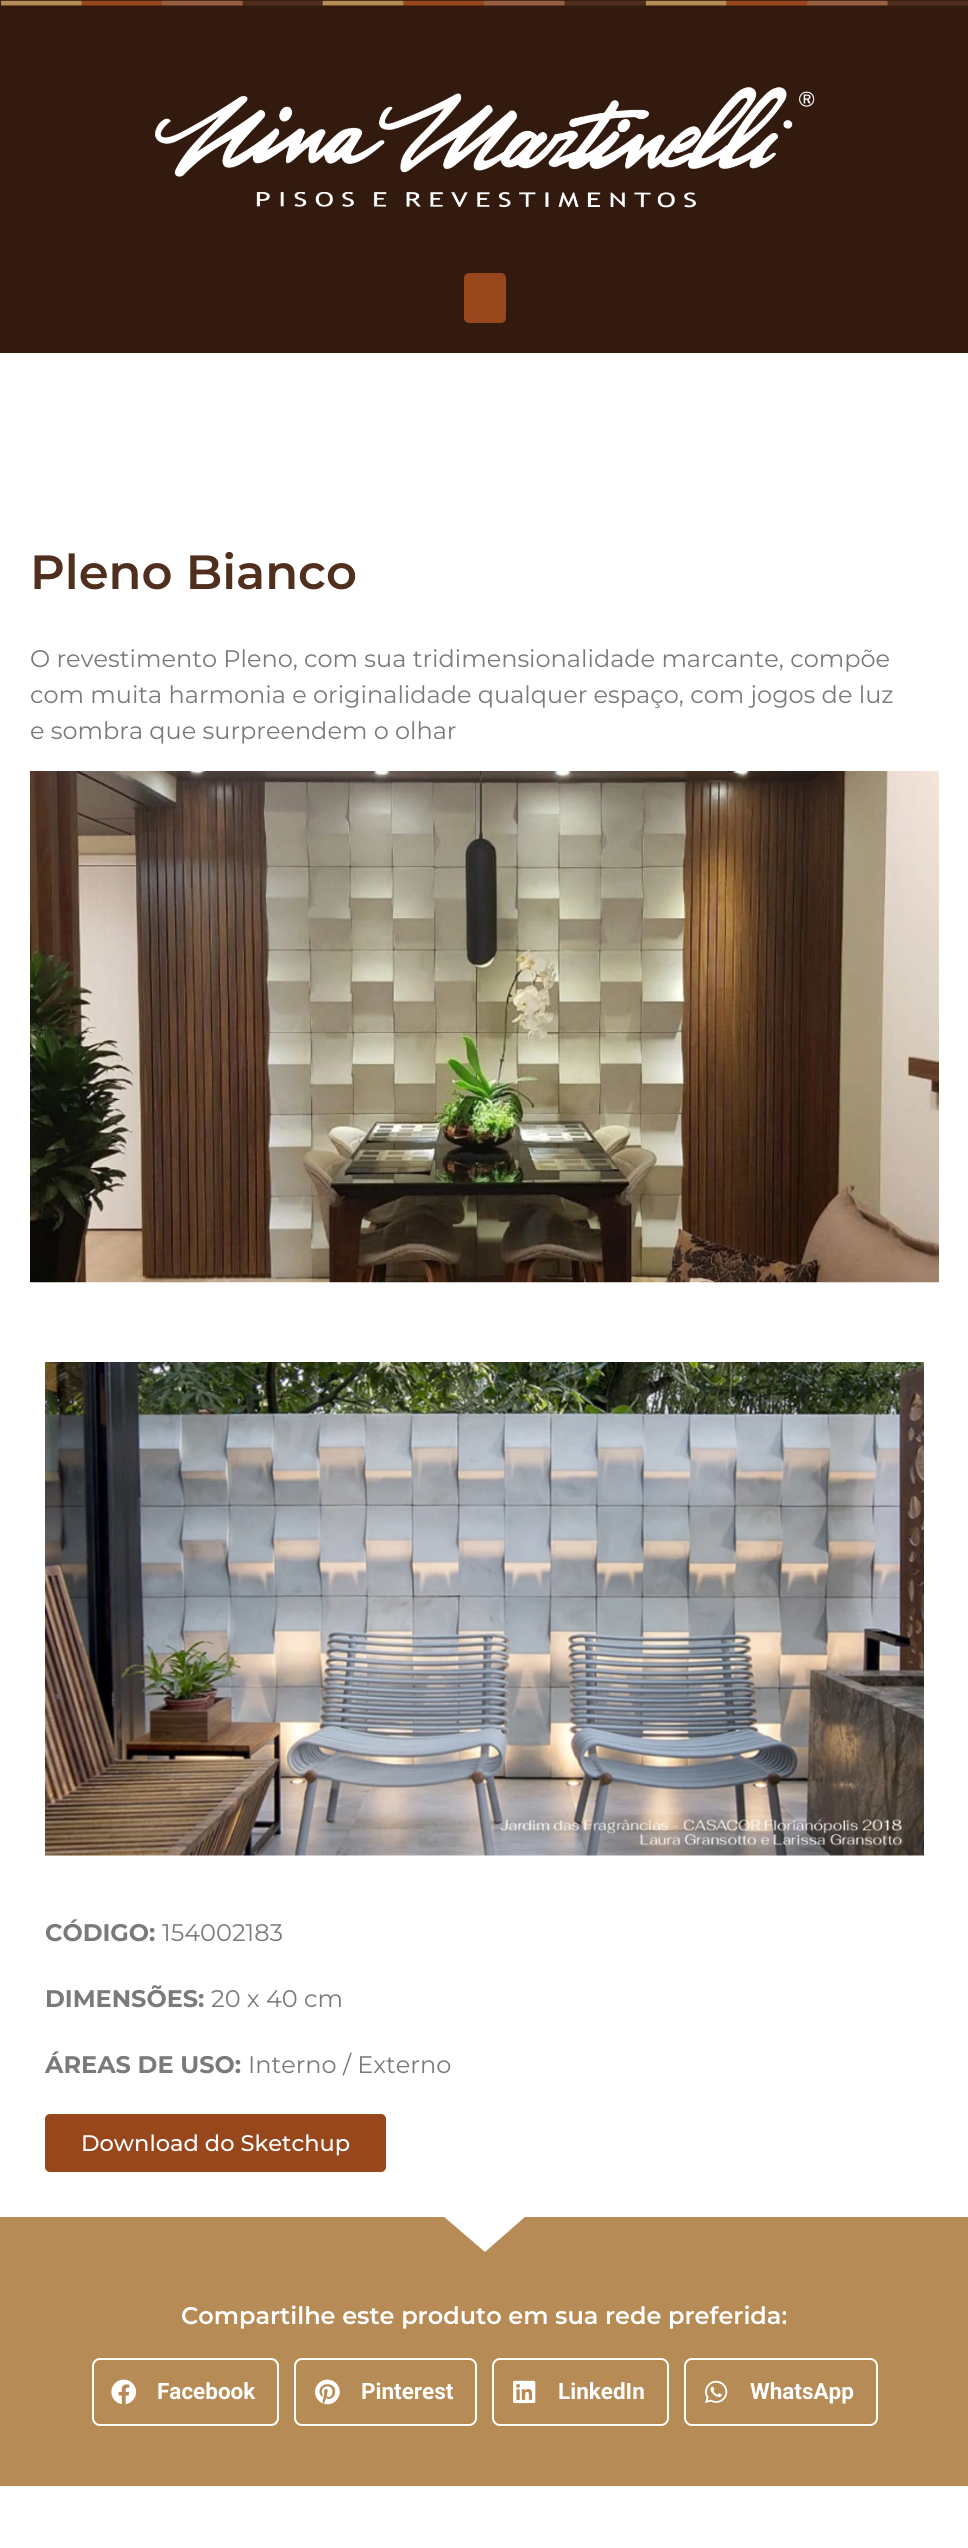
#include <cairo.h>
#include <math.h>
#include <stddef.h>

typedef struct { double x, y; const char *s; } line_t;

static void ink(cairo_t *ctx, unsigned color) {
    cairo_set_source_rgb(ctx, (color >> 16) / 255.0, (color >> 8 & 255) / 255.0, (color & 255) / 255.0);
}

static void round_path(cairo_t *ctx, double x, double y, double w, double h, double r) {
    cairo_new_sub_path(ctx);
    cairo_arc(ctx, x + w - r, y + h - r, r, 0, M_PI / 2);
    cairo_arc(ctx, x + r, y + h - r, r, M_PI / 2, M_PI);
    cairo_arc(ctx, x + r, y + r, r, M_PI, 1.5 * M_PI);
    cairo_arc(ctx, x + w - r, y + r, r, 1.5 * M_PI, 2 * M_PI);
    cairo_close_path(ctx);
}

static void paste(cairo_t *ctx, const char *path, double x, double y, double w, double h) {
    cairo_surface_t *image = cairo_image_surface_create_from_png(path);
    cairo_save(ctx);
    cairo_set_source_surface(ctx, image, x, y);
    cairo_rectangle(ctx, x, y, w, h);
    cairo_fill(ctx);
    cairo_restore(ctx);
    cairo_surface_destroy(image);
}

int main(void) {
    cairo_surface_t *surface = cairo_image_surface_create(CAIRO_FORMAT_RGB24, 968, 2548);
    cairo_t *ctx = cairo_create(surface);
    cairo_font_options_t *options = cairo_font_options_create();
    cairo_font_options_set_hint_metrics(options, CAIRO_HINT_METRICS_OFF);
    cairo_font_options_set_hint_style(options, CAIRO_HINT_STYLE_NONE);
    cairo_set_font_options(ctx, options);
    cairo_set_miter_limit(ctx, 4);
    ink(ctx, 0xFFFFFF);
    cairo_paint(ctx);
    ink(ctx, 0x331A0E);
    cairo_rectangle(ctx, 0, 0, 968, 353);
    cairo_fill(ctx);
    paste(ctx, "media/1.png", 0, 0, 968, 6);
    paste(ctx, "media/2.png", 155, 87, 660, 121);
    ink(ctx, 0x98471D);
    round_path(ctx, 464, 273, 42, 50, 5);
    cairo_fill(ctx);
    cairo_select_font_face(ctx, "Montserrat SemiBold", CAIRO_FONT_SLANT_NORMAL, CAIRO_FONT_WEIGHT_NORMAL);
    cairo_set_font_size(ctx, 48);
    ink(ctx, 0x502F1E);
    cairo_move_to(ctx, 30, 589);
    cairo_show_text(ctx, "Pleno Bianco");
    cairo_select_font_face(ctx, "Montserrat", CAIRO_FONT_SLANT_NORMAL, CAIRO_FONT_WEIGHT_NORMAL);
    cairo_set_font_size(ctx, 24);
    ink(ctx, 0x7A7A7A);
    {
        static const line_t items[] = {
            {30, 667, "O revestimento Pleno, com sua tridimensionalidade marcante, compõe"},
            {30, 703, "com muita harmonia e originalidade qualquer espaço, com jogos de luz"},
            {30, 739, "e sombra que surpreendem o olhar"},
        };
        for (size_t i = 0; i < sizeof items / sizeof *items; i++) {
            cairo_move_to(ctx, items[i].x, items[i].y);
            cairo_show_text(ctx, items[i].s);
        }
    }
    paste(ctx, "media/3.png", 30, 771, 909, 512);
    paste(ctx, "media/4.png", 45, 1362, 879, 494);
    cairo_select_font_face(ctx, "Montserrat", CAIRO_FONT_SLANT_NORMAL, CAIRO_FONT_WEIGHT_BOLD);
    cairo_move_to(ctx, 45, 1941);
    cairo_show_text(ctx, "CÓDIGO:");
    cairo_select_font_face(ctx, "Montserrat", CAIRO_FONT_SLANT_NORMAL, CAIRO_FONT_WEIGHT_NORMAL);
    cairo_move_to(ctx, 162, 1941);
    cairo_show_text(ctx, "154002183");
    cairo_select_font_face(ctx, "Montserrat", CAIRO_FONT_SLANT_NORMAL, CAIRO_FONT_WEIGHT_BOLD);
    cairo_move_to(ctx, 45, 2007);
    cairo_show_text(ctx, "DIMENSÕES:");
    cairo_select_font_face(ctx, "Montserrat", CAIRO_FONT_SLANT_NORMAL, CAIRO_FONT_WEIGHT_NORMAL);
    cairo_move_to(ctx, 211, 2007);
    cairo_show_text(ctx, "20 x 40 cm");
    cairo_select_font_face(ctx, "Montserrat", CAIRO_FONT_SLANT_NORMAL, CAIRO_FONT_WEIGHT_BOLD);
    cairo_move_to(ctx, 45, 2073);
    cairo_show_text(ctx, "ÁREAS DE USO:");
    cairo_select_font_face(ctx, "Montserrat", CAIRO_FONT_SLANT_NORMAL, CAIRO_FONT_WEIGHT_NORMAL);
    cairo_move_to(ctx, 248, 2073);
    cairo_show_text(ctx, "Interno / Externo");
    ink(ctx, 0x98471D);
    round_path(ctx, 45, 2114, 341, 58, 5);
    cairo_fill(ctx);
    cairo_select_font_face(ctx, "Montserrat Medium", CAIRO_FONT_SLANT_NORMAL, CAIRO_FONT_WEIGHT_NORMAL);
    cairo_set_font_size(ctx, 22.5);
    ink(ctx, 0xFFFFFF);
    cairo_move_to(ctx, 81, 2151);
    cairo_show_text(ctx, "Download do Sketchup");
    ink(ctx, 0xB78B55);
    cairo_rectangle(ctx, 0, 2217, 968, 269);
    cairo_fill(ctx);
    ink(ctx, 0xFFFFFF);
    cairo_new_path(ctx);
    cairo_move_to(ctx, 485, 2252);
    cairo_line_to(ctx, 443, 2216);
    cairo_line_to(ctx, 526, 2216);
    cairo_close_path(ctx);
    cairo_fill(ctx);
    cairo_select_font_face(ctx, "Montserrat SemiBold", CAIRO_FONT_SLANT_NORMAL, CAIRO_FONT_WEIGHT_NORMAL);
    cairo_set_font_size(ctx, 24);
    cairo_move_to(ctx, 181, 2324);
    cairo_show_text(ctx, "Compartilhe este produto em sua rede preferida:");
    round_path(ctx, 93, 2359, 185, 66, 7);
    cairo_stroke(ctx);
    paste(ctx, "media/5.png", 111, 2379, 26, 26);
    cairo_select_font_face(ctx, "Roboto", CAIRO_FONT_SLANT_NORMAL, CAIRO_FONT_WEIGHT_BOLD);
    cairo_set_font_size(ctx, 22.5);
    cairo_move_to(ctx, 157, 2399);
    cairo_show_text(ctx, "Facebook");
    round_path(ctx, 295, 2359, 181, 66, 7);
    cairo_stroke(ctx);
    paste(ctx, "media/6.png", 315, 2379, 25, 26);
    cairo_move_to(ctx, 361, 2399);
    cairo_show_text(ctx, "Pinterest");
    round_path(ctx, 493, 2359, 175, 66, 7);
    cairo_stroke(ctx);
    paste(ctx, "media/7.png", 513, 2380, 23, 24);
    cairo_move_to(ctx, 558, 2399);
    cairo_show_text(ctx, "LinkedIn");
    round_path(ctx, 685, 2359, 192, 66, 7);
    cairo_stroke(ctx);
    paste(ctx, "media/8.png", 705, 2380, 23, 23);
    cairo_move_to(ctx, 750, 2399);
    cairo_show_text(ctx, "WhatsApp");
    cairo_surface_write_to_png(surface, "image.png");
    cairo_font_options_destroy(options);
    cairo_destroy(ctx);
    cairo_surface_destroy(surface);
    return 0;
}
